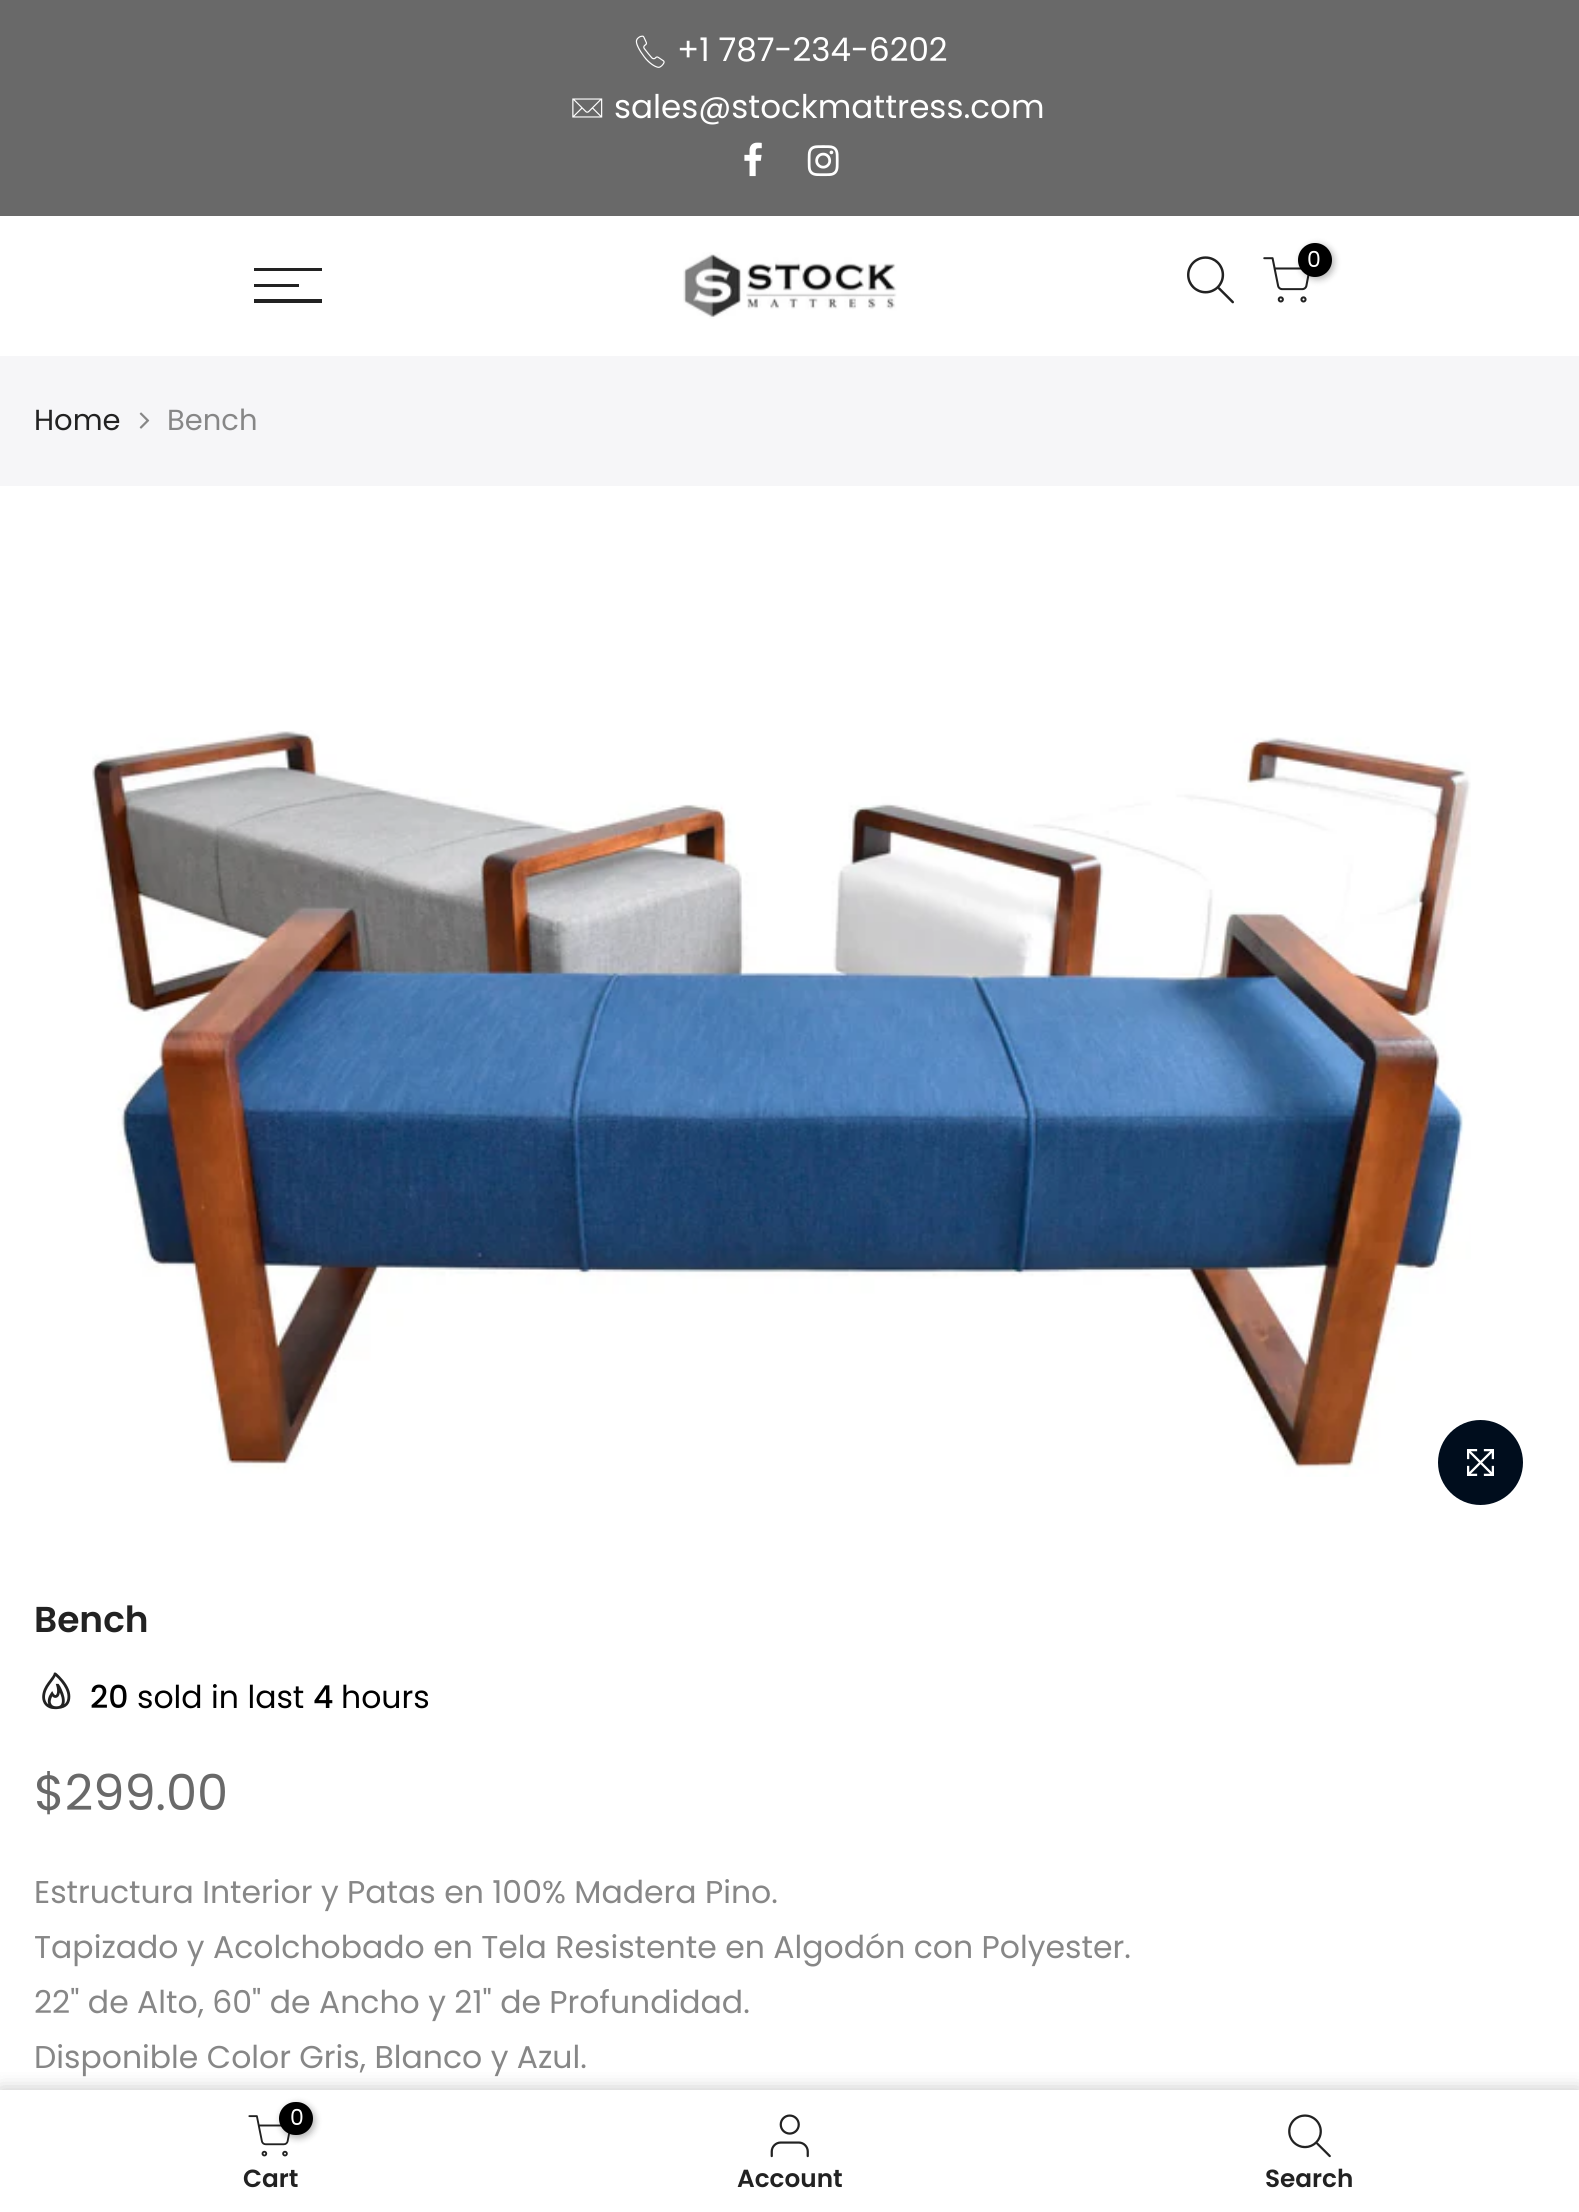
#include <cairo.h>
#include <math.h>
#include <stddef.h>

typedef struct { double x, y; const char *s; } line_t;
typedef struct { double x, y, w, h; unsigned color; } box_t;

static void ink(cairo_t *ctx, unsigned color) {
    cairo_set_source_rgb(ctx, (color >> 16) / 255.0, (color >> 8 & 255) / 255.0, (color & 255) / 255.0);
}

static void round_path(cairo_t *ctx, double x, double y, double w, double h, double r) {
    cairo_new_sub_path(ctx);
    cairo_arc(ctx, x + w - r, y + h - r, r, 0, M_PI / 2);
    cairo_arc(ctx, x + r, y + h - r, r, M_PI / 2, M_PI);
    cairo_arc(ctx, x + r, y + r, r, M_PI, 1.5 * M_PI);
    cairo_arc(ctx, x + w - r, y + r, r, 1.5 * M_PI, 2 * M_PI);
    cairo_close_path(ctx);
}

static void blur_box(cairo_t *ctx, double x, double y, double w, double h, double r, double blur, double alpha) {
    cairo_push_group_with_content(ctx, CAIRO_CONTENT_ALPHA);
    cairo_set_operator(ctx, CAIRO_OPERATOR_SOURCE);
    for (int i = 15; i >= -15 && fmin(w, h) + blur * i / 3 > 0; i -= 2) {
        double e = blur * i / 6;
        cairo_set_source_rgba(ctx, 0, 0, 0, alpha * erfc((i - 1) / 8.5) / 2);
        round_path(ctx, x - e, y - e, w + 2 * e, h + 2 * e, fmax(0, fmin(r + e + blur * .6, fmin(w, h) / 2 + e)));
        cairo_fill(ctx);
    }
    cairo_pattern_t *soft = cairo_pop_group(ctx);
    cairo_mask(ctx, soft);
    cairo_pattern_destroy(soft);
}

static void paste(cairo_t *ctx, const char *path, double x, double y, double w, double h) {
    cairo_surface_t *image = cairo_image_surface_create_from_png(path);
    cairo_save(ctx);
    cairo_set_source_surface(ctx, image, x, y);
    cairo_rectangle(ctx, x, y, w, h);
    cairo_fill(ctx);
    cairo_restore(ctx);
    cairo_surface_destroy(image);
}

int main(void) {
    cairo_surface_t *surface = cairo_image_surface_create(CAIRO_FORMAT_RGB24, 1579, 2212);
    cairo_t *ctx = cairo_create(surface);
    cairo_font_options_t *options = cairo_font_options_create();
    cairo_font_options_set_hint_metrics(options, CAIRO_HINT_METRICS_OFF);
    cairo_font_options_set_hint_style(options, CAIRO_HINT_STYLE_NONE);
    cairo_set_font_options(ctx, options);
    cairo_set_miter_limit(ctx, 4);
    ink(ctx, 0xFFFFFF);
    cairo_paint(ctx);
    ink(ctx, 0x696969);
    cairo_rectangle(ctx, 0, 0, 1579, 216);
    cairo_fill(ctx);
    paste(ctx, "media/1.png", 635, 35, 30, 33);
    cairo_select_font_face(ctx, "Poppins", CAIRO_FONT_SLANT_NORMAL, CAIRO_FONT_WEIGHT_NORMAL);
    cairo_set_font_size(ctx, 32.6);
    ink(ctx, 0xFFFFFF);
    cairo_move_to(ctx, 677, 61);
    cairo_show_text(ctx, "+1 787-234-6202");
    paste(ctx, "media/2.png", 572, 98, 31, 20);
    cairo_move_to(ctx, 614, 118);
    cairo_show_text(ctx, "sales@stockmattress.com");
    paste(ctx, "media/3.png", 744, 142, 18, 35);
    paste(ctx, "media/4.png", 807, 145, 32, 32);
    {
        static const box_t items[] = {
            {254, 268, 68, 3, 0x222222},
            {254, 284, 45, 3, 0x222222},
            {254, 299, 68, 4, 0x222222},
        };
        for (size_t i = 0; i < sizeof items / sizeof *items; i++) {
            ink(ctx, items[i].color);
            cairo_rectangle(ctx, items[i].x, items[i].y, items[i].w, items[i].h);
            cairo_fill(ctx);
        }
    }
    paste(ctx, "media/5.png", 683, 252, 214, 67);
    paste(ctx, "media/6.png", 1187, 256, 47, 48);
    paste(ctx, "media/7.png", 1263, 257, 47, 46);
    ink(ctx, 0x000000);
    blur_box(ctx, 1301, 245, 33, 34, 16.5, 3.5, 0.3);
    ink(ctx, 0x000000);
    cairo_arc(ctx, 1315, 260, 17, 0, 2 * M_PI);
    cairo_fill(ctx);
    cairo_set_font_size(ctx, 22);
    ink(ctx, 0xFFFFFF);
    cairo_move_to(ctx, 1307, 267);
    cairo_show_text(ctx, "0");
    ink(ctx, 0xF6F6F8);
    cairo_rectangle(ctx, 0, 356, 1579, 130);
    cairo_fill(ctx);
    cairo_set_font_size(ctx, 29);
    ink(ctx, 0x222222);
    cairo_move_to(ctx, 34, 430);
    cairo_show_text(ctx, "Home");
    paste(ctx, "media/8.png", 139, 412, 11, 17);
    ink(ctx, 0x878787);
    cairo_move_to(ctx, 167, 430);
    cairo_show_text(ctx, "Bench");
    paste(ctx, "media/9.png", 92, 730, 1379, 747);
    ink(ctx, 0x000D1D);
    cairo_arc(ctx, 1480.5, 1462.5, 42.5, 0, 2 * M_PI);
    cairo_fill(ctx);
    paste(ctx, "media/10.png", 1467, 1449, 27, 27);
    cairo_select_font_face(ctx, "Poppins SemiBold", CAIRO_FONT_SLANT_NORMAL, CAIRO_FONT_WEIGHT_NORMAL);
    cairo_set_font_size(ctx, 36);
    ink(ctx, 0x222222);
    cairo_move_to(ctx, 34, 1632);
    cairo_show_text(ctx, "Bench");
    paste(ctx, "media/11.png", 42, 1672, 29, 38);
    cairo_select_font_face(ctx, "Poppins Medium", CAIRO_FONT_SLANT_NORMAL, CAIRO_FONT_WEIGHT_NORMAL);
    cairo_set_font_size(ctx, 31.5);
    ink(ctx, 0x000000);
    cairo_move_to(ctx, 90, 1708);
    cairo_show_text(ctx, "20");
    cairo_select_font_face(ctx, "Poppins", CAIRO_FONT_SLANT_NORMAL, CAIRO_FONT_WEIGHT_NORMAL);
    cairo_move_to(ctx, 137, 1708);
    cairo_show_text(ctx, "sold in last");
    cairo_select_font_face(ctx, "Poppins Medium", CAIRO_FONT_SLANT_NORMAL, CAIRO_FONT_WEIGHT_NORMAL);
    cairo_move_to(ctx, 313, 1708);
    cairo_show_text(ctx, "4");
    cairo_select_font_face(ctx, "Poppins", CAIRO_FONT_SLANT_NORMAL, CAIRO_FONT_WEIGHT_NORMAL);
    cairo_move_to(ctx, 341, 1708);
    cairo_show_text(ctx, "hours");
    cairo_set_font_size(ctx, 49.5);
    ink(ctx, 0x696969);
    cairo_move_to(ctx, 34, 1810);
    cairo_show_text(ctx, "$299.00");
    cairo_set_font_size(ctx, 31.5);
    ink(ctx, 0x878787);
    {
        static const line_t items[] = {
            {34, 1903, "Estructura Interior y Patas en 100% Madera Pino."},
            {34, 1958, "Tapizado y Acolchobado en Tela Resistente en Algodón con Polyester."},
            {34, 2013, "22\" de Alto, 60\" de Ancho y 21\" de Profundidad."},
            {34, 2068, "Disponible Color Gris, Blanco y Azul."},
        };
        for (size_t i = 0; i < sizeof items / sizeof *items; i++) {
            cairo_move_to(ctx, items[i].x, items[i].y);
            cairo_show_text(ctx, items[i].s);
        }
    }
    ink(ctx, 0x000000);
    blur_box(ctx, 0, 2090, 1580, 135, 0, 10, 0.12);
    blur_box(ctx, 0, 2090, 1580, 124, 0, 10, 0.12);
    ink(ctx, 0xFFFFFF);
    cairo_rectangle(ctx, 0, 2090, 1579, 122);
    cairo_fill(ctx);
    paste(ctx, "media/12.png", 248, 2115, 42, 42);
    ink(ctx, 0x000000);
    blur_box(ctx, 281, 2104, 34, 34, 17, 3.5, 0.3);
    ink(ctx, 0x000000);
    round_path(ctx, 279, 2102, 34, 33, 16.5);
    cairo_fill(ctx);
    cairo_set_font_size(ctx, 22);
    ink(ctx, 0xFFFFFF);
    cairo_move_to(ctx, 290, 2125);
    cairo_show_text(ctx, "0");
    cairo_select_font_face(ctx, "Poppins SemiBold", CAIRO_FONT_SLANT_NORMAL, CAIRO_FONT_WEIGHT_NORMAL);
    cairo_set_font_size(ctx, 24.75);
    ink(ctx, 0x222222);
    cairo_move_to(ctx, 243, 2187);
    cairo_show_text(ctx, "Cart");
    paste(ctx, "media/13.png", 770, 2114, 39, 44);
    cairo_move_to(ctx, 737, 2187);
    cairo_show_text(ctx, "Account");
    paste(ctx, "media/14.png", 1288, 2114, 43, 44);
    cairo_move_to(ctx, 1265, 2187);
    cairo_show_text(ctx, "Search");
    cairo_surface_write_to_png(surface, "image.png");
    cairo_font_options_destroy(options);
    cairo_destroy(ctx);
    cairo_surface_destroy(surface);
    return 0;
}
